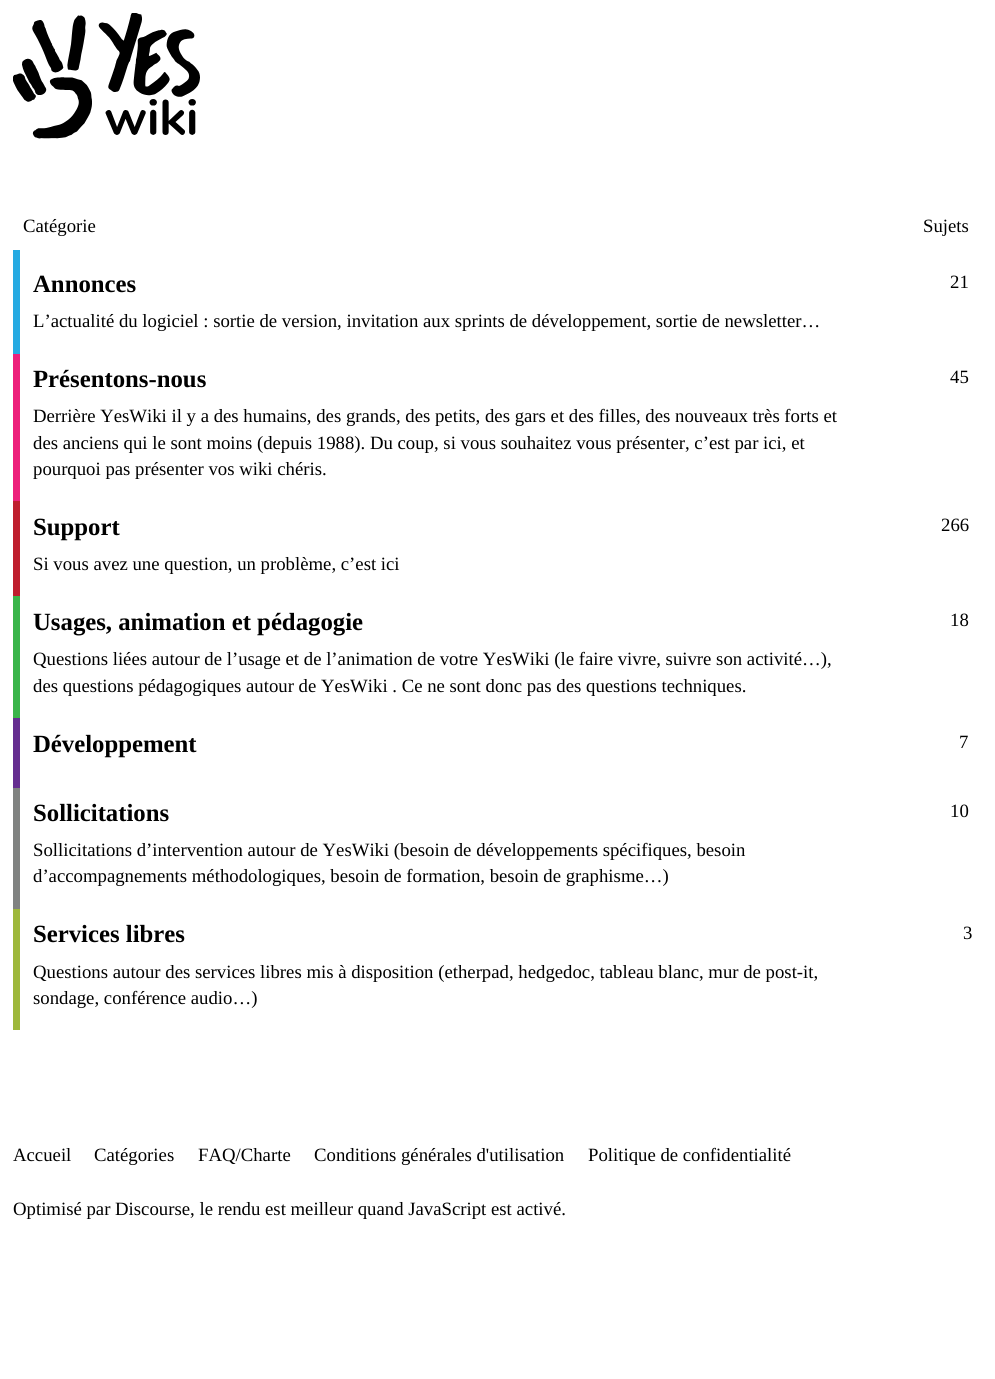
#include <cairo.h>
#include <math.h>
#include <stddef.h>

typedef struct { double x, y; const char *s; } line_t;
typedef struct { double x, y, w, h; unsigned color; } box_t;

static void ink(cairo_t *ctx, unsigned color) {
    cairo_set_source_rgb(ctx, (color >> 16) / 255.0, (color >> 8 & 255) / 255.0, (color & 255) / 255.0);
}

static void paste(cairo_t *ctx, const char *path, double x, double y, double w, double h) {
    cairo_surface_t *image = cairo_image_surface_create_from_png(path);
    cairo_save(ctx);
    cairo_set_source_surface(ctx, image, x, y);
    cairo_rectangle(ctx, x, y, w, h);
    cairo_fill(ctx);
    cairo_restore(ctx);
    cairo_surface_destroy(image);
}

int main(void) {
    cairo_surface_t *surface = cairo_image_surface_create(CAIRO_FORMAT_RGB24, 995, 1379);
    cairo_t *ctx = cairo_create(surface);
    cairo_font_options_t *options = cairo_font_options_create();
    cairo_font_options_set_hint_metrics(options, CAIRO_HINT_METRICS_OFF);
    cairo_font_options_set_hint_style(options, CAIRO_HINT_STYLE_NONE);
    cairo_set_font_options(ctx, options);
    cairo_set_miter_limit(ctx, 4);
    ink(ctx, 0xFFFFFF);
    cairo_paint(ctx);
    paste(ctx, "media/1.png", 13, 13, 187, 126);
    cairo_select_font_face(ctx, "Liberation Serif", CAIRO_FONT_SLANT_NORMAL, CAIRO_FONT_WEIGHT_NORMAL);
    cairo_set_font_size(ctx, 18.75);
    ink(ctx, 0x000000);
    cairo_move_to(ctx, 23, 232);
    cairo_show_text(ctx, "Catégorie");
    cairo_move_to(ctx, 923, 232);
    cairo_show_text(ctx, "Sujets");
    {
        static const box_t items[] = {
            {13, 901, 7, 129, 0x9EB83B},
            {13, 780, 7, 129, 0x808281},
            {13, 710, 7, 78, 0x652D90},
            {13, 589, 7, 129, 0x3AB54A},
            {13, 494, 7, 102, 0xBF1E2E},
            {13, 346, 7, 155, 0xED207B},
            {13, 250, 7, 104, 0x25AAE2},
        };
        for (size_t i = 0; i < sizeof items / sizeof *items; i++) {
            ink(ctx, items[i].color);
            cairo_rectangle(ctx, items[i].x, items[i].y, items[i].w, items[i].h);
            cairo_fill(ctx);
        }
    }
    cairo_select_font_face(ctx, "Liberation Serif", CAIRO_FONT_SLANT_NORMAL, CAIRO_FONT_WEIGHT_BOLD);
    cairo_set_font_size(ctx, 24.75);
    ink(ctx, 0x000000);
    cairo_move_to(ctx, 33, 292);
    cairo_show_text(ctx, "Annonces");
    cairo_select_font_face(ctx, "Liberation Serif", CAIRO_FONT_SLANT_NORMAL, CAIRO_FONT_WEIGHT_NORMAL);
    cairo_set_font_size(ctx, 18.75);
    cairo_move_to(ctx, 33, 327);
    cairo_show_text(ctx, "L’actualité du logiciel : sortie de version, invitation aux sprints de développement, sortie de newsletter…");
    cairo_move_to(ctx, 950, 288);
    cairo_show_text(ctx, "21");
    cairo_select_font_face(ctx, "Liberation Serif", CAIRO_FONT_SLANT_NORMAL, CAIRO_FONT_WEIGHT_BOLD);
    cairo_set_font_size(ctx, 24.75);
    cairo_move_to(ctx, 33, 387);
    cairo_show_text(ctx, "Présentons-nous");
    cairo_select_font_face(ctx, "Liberation Serif", CAIRO_FONT_SLANT_NORMAL, CAIRO_FONT_WEIGHT_NORMAL);
    cairo_set_font_size(ctx, 18.75);
    {
        static const line_t items[] = {
            {33, 422, "Derrière YesWiki il y a des humains, des grands, des petits, des gars et des filles, des nouveaux très forts et"},
            {33, 449, "des anciens qui le sont moins (depuis 1988). Du coup, si vous souhaitez vous présenter, c’est par ici, et"},
            {33, 475, "pourquoi pas présenter vos wiki chéris."},
            {950, 383, "45"},
        };
        for (size_t i = 0; i < sizeof items / sizeof *items; i++) {
            cairo_move_to(ctx, items[i].x, items[i].y);
            cairo_show_text(ctx, items[i].s);
        }
    }
    cairo_select_font_face(ctx, "Liberation Serif", CAIRO_FONT_SLANT_NORMAL, CAIRO_FONT_WEIGHT_BOLD);
    cairo_set_font_size(ctx, 24.75);
    cairo_move_to(ctx, 33, 535);
    cairo_show_text(ctx, "Support");
    cairo_select_font_face(ctx, "Liberation Serif", CAIRO_FONT_SLANT_NORMAL, CAIRO_FONT_WEIGHT_NORMAL);
    cairo_set_font_size(ctx, 18.75);
    cairo_move_to(ctx, 33, 570);
    cairo_show_text(ctx, "Si vous avez une question, un problème, c’est ici");
    cairo_move_to(ctx, 941, 531);
    cairo_show_text(ctx, "266");
    cairo_select_font_face(ctx, "Liberation Serif", CAIRO_FONT_SLANT_NORMAL, CAIRO_FONT_WEIGHT_BOLD);
    cairo_set_font_size(ctx, 24.75);
    cairo_move_to(ctx, 33, 630);
    cairo_show_text(ctx, "Usages, animation et pédagogie");
    cairo_select_font_face(ctx, "Liberation Serif", CAIRO_FONT_SLANT_NORMAL, CAIRO_FONT_WEIGHT_NORMAL);
    cairo_set_font_size(ctx, 18.75);
    {
        static const line_t items[] = {
            {33, 665, "Questions liées autour de l’usage et de l’animation de votre YesWiki (le faire vivre, suivre son activité…),"},
            {33, 692, "des questions pédagogiques autour de YesWiki . Ce ne sont donc pas des questions techniques."},
            {950, 626, "18"},
        };
        for (size_t i = 0; i < sizeof items / sizeof *items; i++) {
            cairo_move_to(ctx, items[i].x, items[i].y);
            cairo_show_text(ctx, items[i].s);
        }
    }
    cairo_select_font_face(ctx, "Liberation Serif", CAIRO_FONT_SLANT_NORMAL, CAIRO_FONT_WEIGHT_BOLD);
    cairo_set_font_size(ctx, 24.75);
    cairo_move_to(ctx, 33, 752);
    cairo_show_text(ctx, "Développement");
    cairo_select_font_face(ctx, "Liberation Serif", CAIRO_FONT_SLANT_NORMAL, CAIRO_FONT_WEIGHT_NORMAL);
    cairo_set_font_size(ctx, 18.75);
    cairo_move_to(ctx, 959, 748);
    cairo_show_text(ctx, "7");
    cairo_select_font_face(ctx, "Liberation Serif", CAIRO_FONT_SLANT_NORMAL, CAIRO_FONT_WEIGHT_BOLD);
    cairo_set_font_size(ctx, 24.75);
    cairo_move_to(ctx, 33, 821);
    cairo_show_text(ctx, "Sollicitations");
    cairo_select_font_face(ctx, "Liberation Serif", CAIRO_FONT_SLANT_NORMAL, CAIRO_FONT_WEIGHT_NORMAL);
    cairo_set_font_size(ctx, 18.75);
    {
        static const line_t items[] = {
            {33, 856, "Sollicitations d’intervention autour de YesWiki (besoin de développements spécifiques, besoin"},
            {33, 882, "d’accompagnements méthodologiques, besoin de formation, besoin de graphisme…)"},
            {950, 817, "10"},
        };
        for (size_t i = 0; i < sizeof items / sizeof *items; i++) {
            cairo_move_to(ctx, items[i].x, items[i].y);
            cairo_show_text(ctx, items[i].s);
        }
    }
    cairo_select_font_face(ctx, "Liberation Serif", CAIRO_FONT_SLANT_NORMAL, CAIRO_FONT_WEIGHT_BOLD);
    cairo_set_font_size(ctx, 24.75);
    cairo_move_to(ctx, 33, 942);
    cairo_show_text(ctx, "Services libres");
    cairo_select_font_face(ctx, "Liberation Serif", CAIRO_FONT_SLANT_NORMAL, CAIRO_FONT_WEIGHT_NORMAL);
    cairo_set_font_size(ctx, 18.75);
    {
        static const line_t items[] = {
            {33, 978, "Questions autour des services libres mis à disposition (etherpad, hedgedoc, tableau blanc, mur de post-it,"},
            {33, 1004, "sondage, conférence audio…)"},
            {963, 939, "3"},
            {13, 1161, "Accueil"},
            {94, 1161, "Catégories"},
            {198, 1161, "FAQ/Charte"},
            {314, 1161, "Conditions générales d'utilisation"},
            {588, 1161, "Politique de confidentialité"},
            {13, 1215, "Optimisé par Discourse, le rendu est meilleur quand JavaScript est activé."},
        };
        for (size_t i = 0; i < sizeof items / sizeof *items; i++) {
            cairo_move_to(ctx, items[i].x, items[i].y);
            cairo_show_text(ctx, items[i].s);
        }
    }
    cairo_surface_write_to_png(surface, "image.png");
    cairo_font_options_destroy(options);
    cairo_destroy(ctx);
    cairo_surface_destroy(surface);
    return 0;
}
